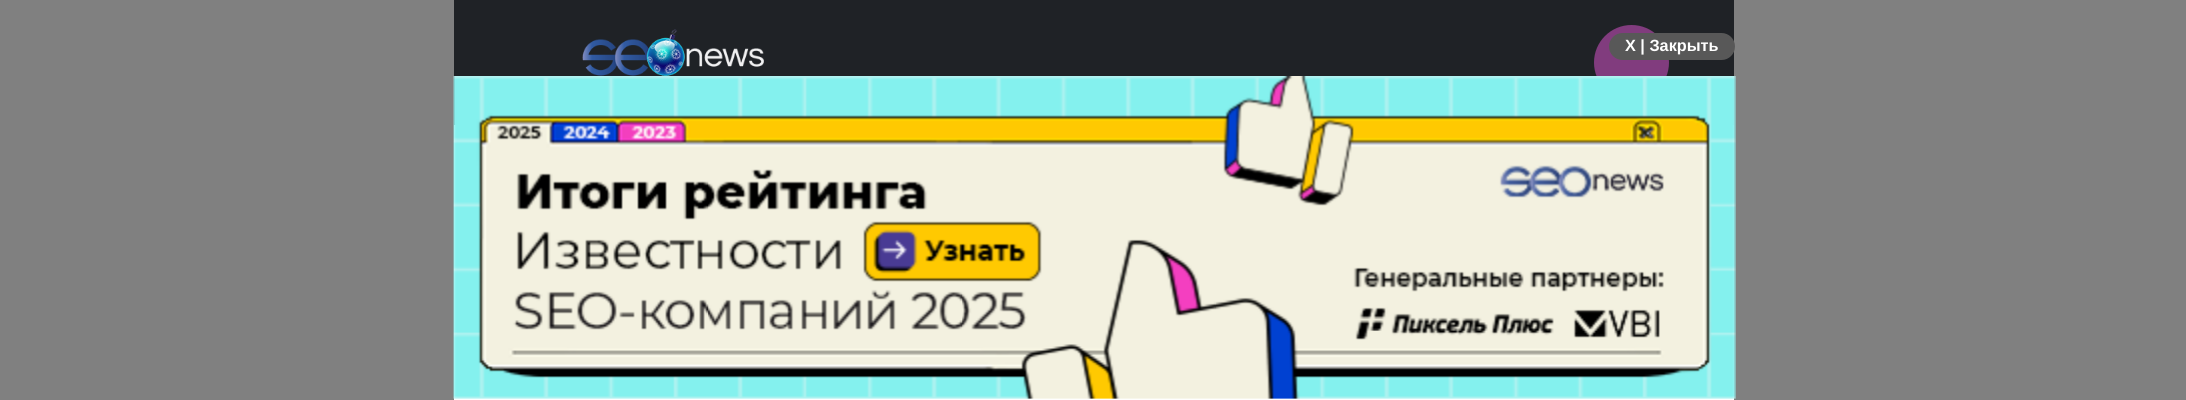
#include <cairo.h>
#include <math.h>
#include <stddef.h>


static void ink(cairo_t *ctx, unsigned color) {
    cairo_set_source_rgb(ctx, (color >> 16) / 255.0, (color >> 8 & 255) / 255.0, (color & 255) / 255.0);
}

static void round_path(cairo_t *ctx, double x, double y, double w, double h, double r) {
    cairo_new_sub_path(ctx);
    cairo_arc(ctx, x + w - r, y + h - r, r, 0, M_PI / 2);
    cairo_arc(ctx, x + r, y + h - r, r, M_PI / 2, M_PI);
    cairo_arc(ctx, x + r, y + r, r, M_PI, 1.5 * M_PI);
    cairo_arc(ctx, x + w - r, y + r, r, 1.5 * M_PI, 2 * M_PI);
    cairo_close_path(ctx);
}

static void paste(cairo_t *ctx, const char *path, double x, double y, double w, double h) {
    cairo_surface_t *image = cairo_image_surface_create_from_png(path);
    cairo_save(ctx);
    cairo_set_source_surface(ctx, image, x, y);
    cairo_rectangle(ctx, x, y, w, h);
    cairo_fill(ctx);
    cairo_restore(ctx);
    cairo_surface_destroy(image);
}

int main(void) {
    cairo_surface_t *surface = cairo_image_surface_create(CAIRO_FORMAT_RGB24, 2186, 400);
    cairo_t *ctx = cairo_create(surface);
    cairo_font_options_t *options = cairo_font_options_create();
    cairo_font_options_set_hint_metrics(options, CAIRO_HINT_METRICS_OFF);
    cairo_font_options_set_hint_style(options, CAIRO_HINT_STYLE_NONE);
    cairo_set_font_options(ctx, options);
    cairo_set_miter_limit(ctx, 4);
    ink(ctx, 0x808080);
    cairo_paint(ctx);
    ink(ctx, 0xFFFFFF);
    cairo_rectangle(ctx, 454, 125, 1280, 275);
    cairo_fill(ctx);
    ink(ctx, 0x1F2226);
    cairo_rectangle(ctx, 454, 0, 1280, 125);
    cairo_fill(ctx);
    paste(ctx, "media/1.png", 582, 29, 182, 47);
    ink(ctx, 0x813C7E);
    cairo_arc(ctx, 1631.5, 62.5, 37.5, 0, 2 * M_PI);
    cairo_fill(ctx);
    ink(ctx, 0x585858);
    round_path(ctx, 1609, 33, 126, 27, 13.5);
    cairo_fill(ctx);
    cairo_select_font_face(ctx, "Liberation Sans", CAIRO_FONT_SLANT_NORMAL, CAIRO_FONT_WEIGHT_BOLD);
    cairo_set_font_size(ctx, 16.25);
    ink(ctx, 0xFFFFFF);
    cairo_move_to(ctx, 1625, 51);
    cairo_show_text(ctx, "X | Закрыть");
    paste(ctx, "media/2.png", 453, 76, 1283, 323);
    cairo_surface_write_to_png(surface, "image.png");
    cairo_font_options_destroy(options);
    cairo_destroy(ctx);
    cairo_surface_destroy(surface);
    return 0;
}
